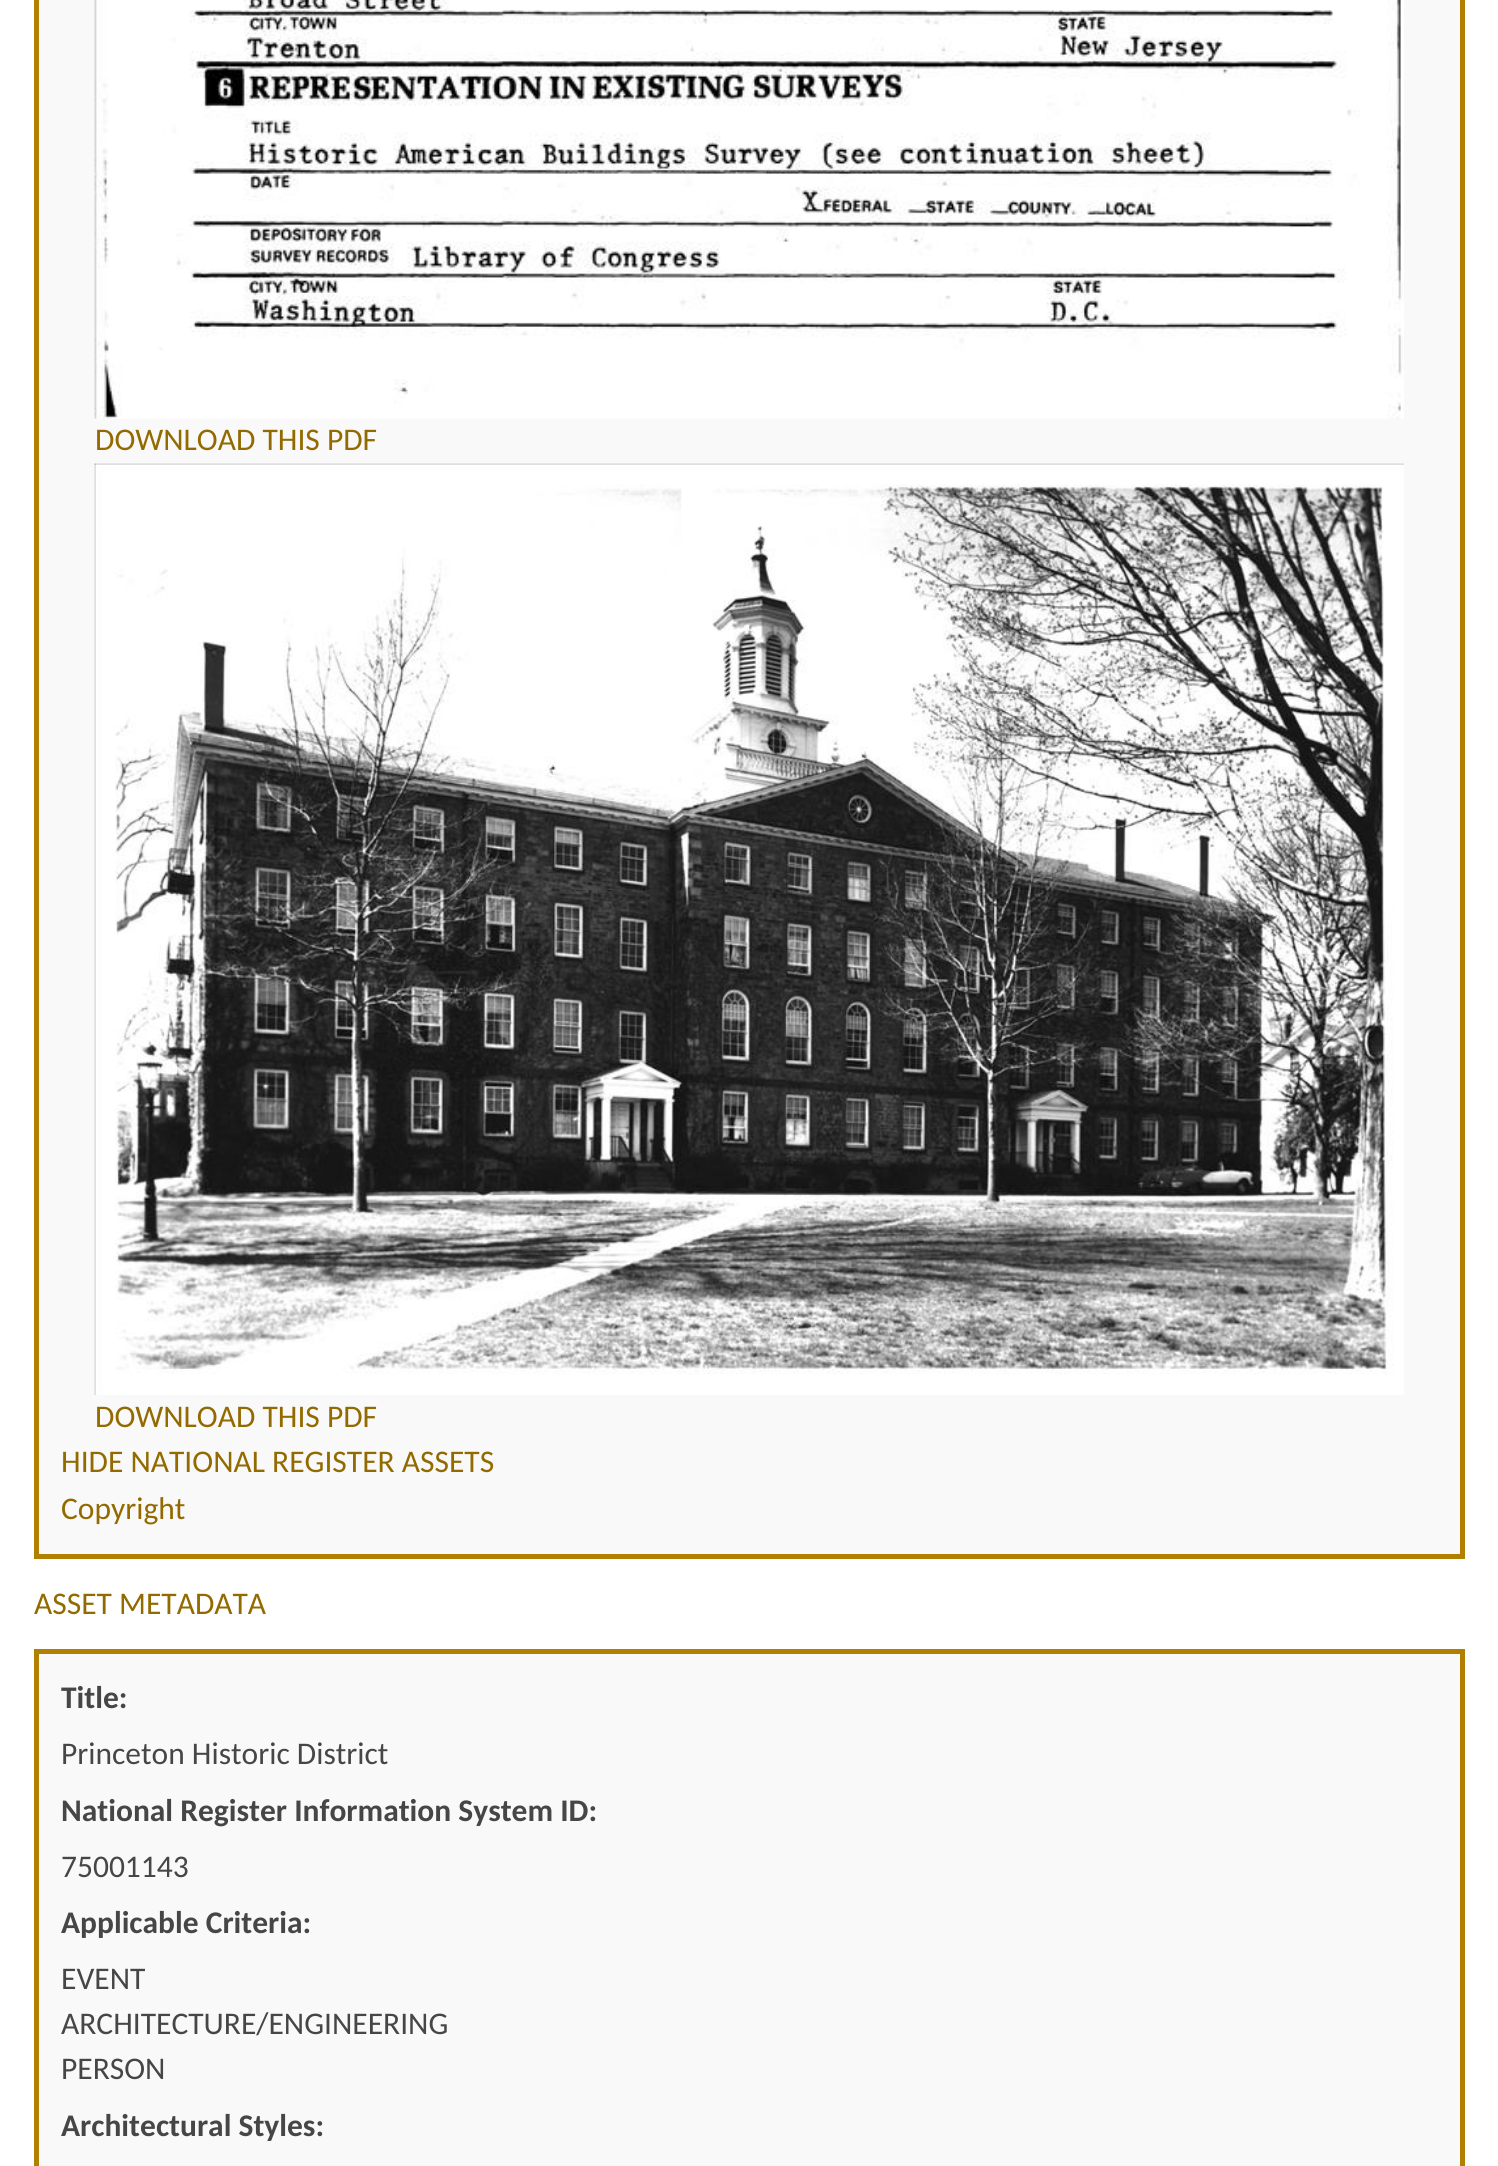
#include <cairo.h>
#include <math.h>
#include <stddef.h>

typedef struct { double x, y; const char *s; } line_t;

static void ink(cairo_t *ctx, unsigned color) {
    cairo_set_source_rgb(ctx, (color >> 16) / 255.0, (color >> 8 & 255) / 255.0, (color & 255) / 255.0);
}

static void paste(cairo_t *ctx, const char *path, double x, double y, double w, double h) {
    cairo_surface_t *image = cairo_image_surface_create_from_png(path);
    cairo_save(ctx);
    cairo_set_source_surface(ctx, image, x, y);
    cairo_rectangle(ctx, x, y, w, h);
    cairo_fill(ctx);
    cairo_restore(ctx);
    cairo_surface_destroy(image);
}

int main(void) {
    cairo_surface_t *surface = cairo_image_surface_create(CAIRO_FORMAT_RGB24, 1498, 2166);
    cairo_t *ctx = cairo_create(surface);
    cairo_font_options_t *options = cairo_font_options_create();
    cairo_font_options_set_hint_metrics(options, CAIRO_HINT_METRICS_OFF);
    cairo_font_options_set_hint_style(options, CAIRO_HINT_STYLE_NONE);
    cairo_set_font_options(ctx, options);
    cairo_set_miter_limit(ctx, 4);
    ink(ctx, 0xFFFFFF);
    cairo_paint(ctx);
    ink(ctx, 0xF9F9F9);
    cairo_rectangle(ctx, 36.5, -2.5, 1426, 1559);
    cairo_fill_preserve(ctx);
    ink(ctx, 0xB28000);
    cairo_set_line_width(ctx, 5);
    cairo_stroke(ctx);
    paste(ctx, "media/1.png", 94, 0, 1310, 419);
    cairo_select_font_face(ctx, "Carlito", CAIRO_FONT_SLANT_NORMAL, CAIRO_FONT_WEIGHT_NORMAL);
    cairo_set_font_size(ctx, 31.5);
    ink(ctx, 0x936A00);
    cairo_move_to(ctx, 95, 450);
    cairo_show_text(ctx, "DOWNLOAD THIS PDF");
    paste(ctx, "media/2.png", 94, 463, 1310, 932);
    {
        static const line_t items[] = {
            {95, 1427, "DOWNLOAD THIS PDF"},
            {61, 1472, "HIDE NATIONAL REGISTER ASSETS"},
            {61, 1519, "Copyright"},
            {34, 1614, "ASSET METADATA"},
        };
        for (size_t i = 0; i < sizeof items / sizeof *items; i++) {
            cairo_move_to(ctx, items[i].x, items[i].y);
            cairo_show_text(ctx, items[i].s);
        }
    }
    ink(ctx, 0xF9F9F9);
    cairo_rectangle(ctx, 36.5, 1651.5, 1426, 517);
    cairo_fill_preserve(ctx);
    ink(ctx, 0xB28000);
    cairo_stroke(ctx);
    cairo_select_font_face(ctx, "Carlito", CAIRO_FONT_SLANT_NORMAL, CAIRO_FONT_WEIGHT_BOLD);
    ink(ctx, 0x464646);
    cairo_move_to(ctx, 61, 1708);
    cairo_show_text(ctx, "Title:");
    cairo_select_font_face(ctx, "Carlito", CAIRO_FONT_SLANT_NORMAL, CAIRO_FONT_WEIGHT_NORMAL);
    cairo_move_to(ctx, 61, 1764);
    cairo_show_text(ctx, "Princeton Historic District");
    cairo_select_font_face(ctx, "Carlito", CAIRO_FONT_SLANT_NORMAL, CAIRO_FONT_WEIGHT_BOLD);
    cairo_move_to(ctx, 61, 1821);
    cairo_show_text(ctx, "National Register Information System ID:");
    cairo_select_font_face(ctx, "Carlito", CAIRO_FONT_SLANT_NORMAL, CAIRO_FONT_WEIGHT_NORMAL);
    cairo_move_to(ctx, 61, 1877);
    cairo_show_text(ctx, "75001143");
    cairo_select_font_face(ctx, "Carlito", CAIRO_FONT_SLANT_NORMAL, CAIRO_FONT_WEIGHT_BOLD);
    cairo_move_to(ctx, 61, 1933);
    cairo_show_text(ctx, "Applicable Criteria:");
    cairo_select_font_face(ctx, "Carlito", CAIRO_FONT_SLANT_NORMAL, CAIRO_FONT_WEIGHT_NORMAL);
    {
        static const line_t items[] = {
            {61, 1989, "EVENT"},
            {61, 2034, "ARCHITECTURE/ENGINEERING"},
            {61, 2079, "PERSON"},
        };
        for (size_t i = 0; i < sizeof items / sizeof *items; i++) {
            cairo_move_to(ctx, items[i].x, items[i].y);
            cairo_show_text(ctx, items[i].s);
        }
    }
    cairo_select_font_face(ctx, "Carlito", CAIRO_FONT_SLANT_NORMAL, CAIRO_FONT_WEIGHT_BOLD);
    cairo_move_to(ctx, 61, 2136);
    cairo_show_text(ctx, "Architectural Styles:");
    cairo_surface_write_to_png(surface, "image.png");
    cairo_font_options_destroy(options);
    cairo_destroy(ctx);
    cairo_surface_destroy(surface);
    return 0;
}
